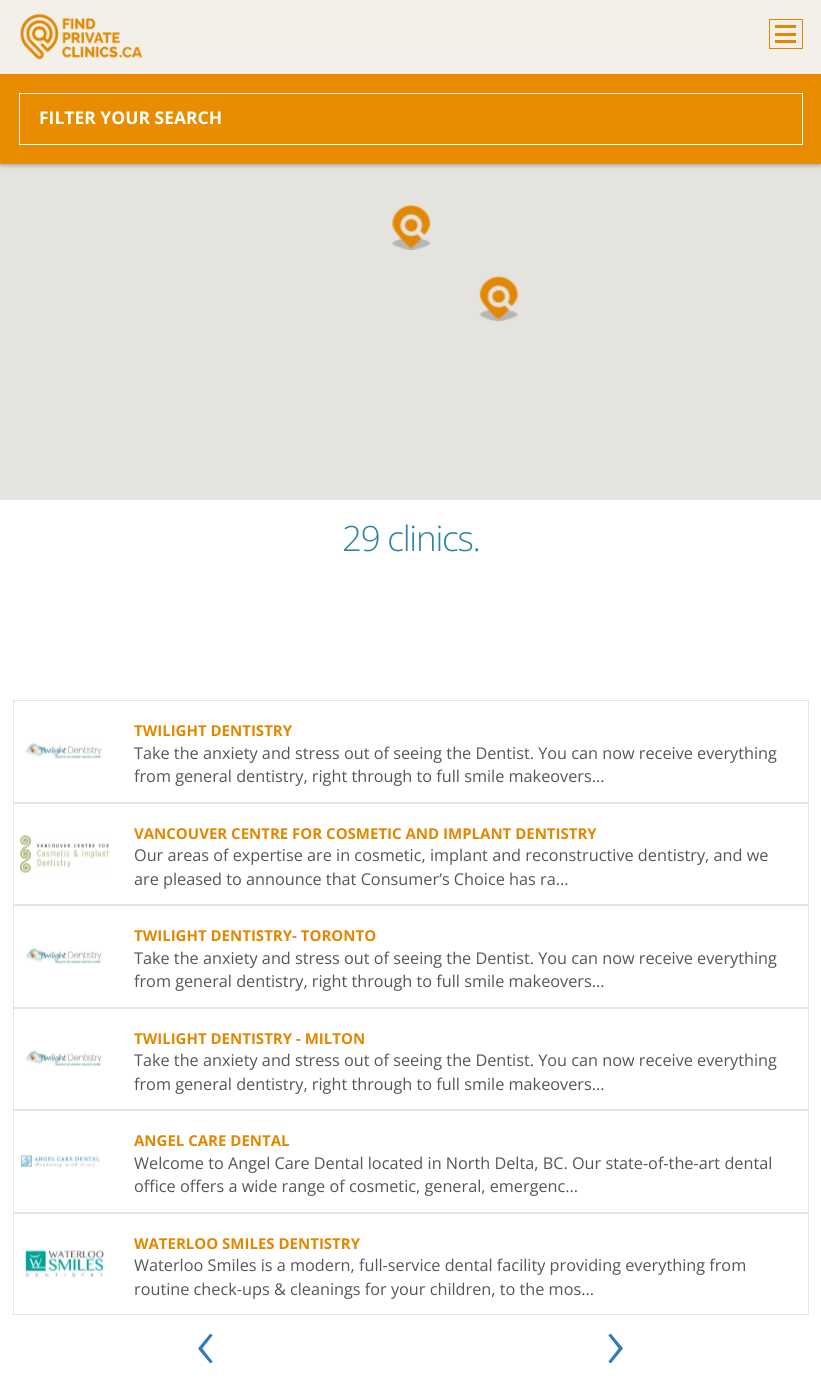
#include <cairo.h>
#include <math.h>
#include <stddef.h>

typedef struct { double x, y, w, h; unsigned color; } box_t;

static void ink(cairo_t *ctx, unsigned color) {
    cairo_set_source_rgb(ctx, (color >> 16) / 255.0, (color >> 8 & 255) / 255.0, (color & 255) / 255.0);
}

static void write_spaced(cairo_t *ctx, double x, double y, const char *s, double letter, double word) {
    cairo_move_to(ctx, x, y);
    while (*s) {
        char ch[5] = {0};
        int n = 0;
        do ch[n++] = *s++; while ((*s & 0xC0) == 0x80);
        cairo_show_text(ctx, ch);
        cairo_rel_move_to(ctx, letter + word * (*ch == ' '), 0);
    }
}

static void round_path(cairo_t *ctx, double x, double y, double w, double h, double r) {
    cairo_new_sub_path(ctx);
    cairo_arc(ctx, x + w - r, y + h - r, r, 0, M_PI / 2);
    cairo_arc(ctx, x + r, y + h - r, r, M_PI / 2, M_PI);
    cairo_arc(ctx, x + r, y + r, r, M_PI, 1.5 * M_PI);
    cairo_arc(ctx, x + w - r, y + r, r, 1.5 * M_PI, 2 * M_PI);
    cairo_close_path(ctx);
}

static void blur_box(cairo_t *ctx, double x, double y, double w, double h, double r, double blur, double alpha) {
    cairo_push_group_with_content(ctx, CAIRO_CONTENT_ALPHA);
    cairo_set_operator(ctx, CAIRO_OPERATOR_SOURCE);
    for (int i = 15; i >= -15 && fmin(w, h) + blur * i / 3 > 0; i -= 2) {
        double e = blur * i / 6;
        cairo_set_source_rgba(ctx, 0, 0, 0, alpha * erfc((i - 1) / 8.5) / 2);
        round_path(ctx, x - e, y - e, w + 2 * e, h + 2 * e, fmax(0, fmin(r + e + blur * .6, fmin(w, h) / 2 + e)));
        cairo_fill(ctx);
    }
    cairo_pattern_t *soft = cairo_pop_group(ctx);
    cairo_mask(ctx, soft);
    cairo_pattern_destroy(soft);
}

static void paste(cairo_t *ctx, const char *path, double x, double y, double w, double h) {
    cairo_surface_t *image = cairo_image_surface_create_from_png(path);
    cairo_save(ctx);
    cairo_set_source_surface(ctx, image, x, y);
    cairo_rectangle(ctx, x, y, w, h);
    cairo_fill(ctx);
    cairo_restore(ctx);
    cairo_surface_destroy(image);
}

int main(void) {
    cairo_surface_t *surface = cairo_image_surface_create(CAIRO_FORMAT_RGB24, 821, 1392);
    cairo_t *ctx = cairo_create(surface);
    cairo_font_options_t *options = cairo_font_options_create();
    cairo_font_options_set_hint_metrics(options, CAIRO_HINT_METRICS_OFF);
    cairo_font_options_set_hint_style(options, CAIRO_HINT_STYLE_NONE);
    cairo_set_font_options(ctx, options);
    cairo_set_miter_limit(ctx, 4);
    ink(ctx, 0xFFFFFF);
    cairo_paint(ctx);
    ink(ctx, 0xE5E3DF);
    cairo_rectangle(ctx, 0, 0, 821, 500);
    cairo_fill(ctx);
    cairo_save(ctx);
    cairo_rectangle(ctx, 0, 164, 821, 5);
    cairo_clip(ctx);
    ink(ctx, 0x323232);
    blur_box(ctx, 1, 4, 819, 161, 0, 2.5, 0.42);
    cairo_restore(ctx);
    cairo_set_source_rgba(ctx, 0.957, 0.949, 0.914, 0.9);
    cairo_rectangle(ctx, 0, 0, 821, 74);
    cairo_fill(ctx);
    paste(ctx, "media/1.png", 20, 14, 122, 46);
    cairo_rectangle(ctx, 769.5, 19.5, 33, 29);
    ink(ctx, 0xE28800);
    cairo_set_line_width(ctx, 1);
    cairo_stroke(ctx);
    {
        static const box_t items[] = {
            {775, 25, 21, 3, 0xE28800},
            {775, 33, 21, 3, 0xE28800},
            {775, 40, 21, 3, 0xE28800},
            {0, 74, 821, 90, 0xE98C00},
        };
        for (size_t i = 0; i < sizeof items / sizeof *items; i++) {
            ink(ctx, items[i].color);
            cairo_rectangle(ctx, items[i].x, items[i].y, items[i].w, items[i].h);
            cairo_fill(ctx);
        }
    }
    cairo_rectangle(ctx, 19.5, 93.5, 783, 51);
    ink(ctx, 0xFFFFFF);
    cairo_stroke(ctx);
    cairo_select_font_face(ctx, "Open Sans", CAIRO_FONT_SLANT_NORMAL, CAIRO_FONT_WEIGHT_BOLD);
    cairo_set_font_size(ctx, 17.5);
    cairo_move_to(ctx, 39, 124);
    cairo_show_text(ctx, "FILTER YOUR SEARCH");
    paste(ctx, "media/2.png", 392, 205, 39, 45);
    paste(ctx, "media/3.png", 479, 276, 40, 45);
    cairo_select_font_face(ctx, "Open Sans Light", CAIRO_FONT_SLANT_NORMAL, CAIRO_FONT_WEIGHT_NORMAL);
    cairo_set_font_size(ctx, 35);
    ink(ctx, 0x2D84A0);
    write_spaced(ctx, 342, 551, "29 clinics.", -1.25, 0);
    cairo_rectangle(ctx, 13.5, 700.5, 795, 102);
    ink(ctx, 0xE7E5E1);
    cairo_stroke(ctx);
    cairo_select_font_face(ctx, "Open Sans", CAIRO_FONT_SLANT_NORMAL, CAIRO_FONT_WEIGHT_BOLD);
    cairo_set_font_size(ctx, 15);
    ink(ctx, 0xE28800);
    cairo_move_to(ctx, 134, 736);
    cairo_show_text(ctx, "TWILIGHT DENTISTRY");
    paste(ctx, "media/4.png", 25, 742, 77, 17);
    cairo_select_font_face(ctx, "Open Sans", CAIRO_FONT_SLANT_NORMAL, CAIRO_FONT_WEIGHT_NORMAL);
    cairo_set_font_size(ctx, 16.25);
    ink(ctx, 0x565656);
    cairo_move_to(ctx, 134, 759);
    cairo_show_text(ctx, "Take the anxiety and stress out of seeing the Dentist. You can now receive everything");
    cairo_move_to(ctx, 134, 782);
    cairo_show_text(ctx, "from general dentistry, right through to full smile makeovers...");
    cairo_rectangle(ctx, 13.5, 803.5, 795, 101);
    ink(ctx, 0xE7E5E1);
    cairo_stroke(ctx);
    paste(ctx, "media/5.png", 20, 834, 89, 40);
    cairo_select_font_face(ctx, "Open Sans", CAIRO_FONT_SLANT_NORMAL, CAIRO_FONT_WEIGHT_BOLD);
    cairo_set_font_size(ctx, 15);
    ink(ctx, 0xE28800);
    cairo_move_to(ctx, 134, 839);
    cairo_show_text(ctx, "VANCOUVER CENTRE FOR COSMETIC AND IMPLANT DENTISTRY");
    cairo_select_font_face(ctx, "Open Sans", CAIRO_FONT_SLANT_NORMAL, CAIRO_FONT_WEIGHT_NORMAL);
    cairo_set_font_size(ctx, 16.25);
    ink(ctx, 0x565656);
    cairo_move_to(ctx, 134, 861);
    cairo_show_text(ctx, "Our areas of expertise are in cosmetic, implant and reconstructive dentistry, and we");
    cairo_move_to(ctx, 134, 885);
    cairo_show_text(ctx, "are pleased to announce that Consumer’s Choice has ra...");
    cairo_rectangle(ctx, 13.5, 905.5, 795, 102);
    ink(ctx, 0xE7E5E1);
    cairo_stroke(ctx);
    cairo_select_font_face(ctx, "Open Sans", CAIRO_FONT_SLANT_NORMAL, CAIRO_FONT_WEIGHT_BOLD);
    cairo_set_font_size(ctx, 15);
    ink(ctx, 0xE28800);
    cairo_move_to(ctx, 134, 941);
    cairo_show_text(ctx, "TWILIGHT DENTISTRY- TORONTO");
    paste(ctx, "media/6.png", 25, 947, 77, 17);
    cairo_select_font_face(ctx, "Open Sans", CAIRO_FONT_SLANT_NORMAL, CAIRO_FONT_WEIGHT_NORMAL);
    cairo_set_font_size(ctx, 16.25);
    ink(ctx, 0x565656);
    cairo_move_to(ctx, 134, 964);
    cairo_show_text(ctx, "Take the anxiety and stress out of seeing the Dentist. You can now receive everything");
    cairo_move_to(ctx, 134, 987);
    cairo_show_text(ctx, "from general dentistry, right through to full smile makeovers...");
    cairo_rectangle(ctx, 13.5, 1008.5, 795, 101);
    ink(ctx, 0xE7E5E1);
    cairo_stroke(ctx);
    cairo_select_font_face(ctx, "Open Sans", CAIRO_FONT_SLANT_NORMAL, CAIRO_FONT_WEIGHT_BOLD);
    cairo_set_font_size(ctx, 15);
    ink(ctx, 0xE28800);
    cairo_move_to(ctx, 134, 1044);
    cairo_show_text(ctx, "TWILIGHT DENTISTRY - MILTON");
    paste(ctx, "media/7.png", 25, 1050, 77, 17);
    cairo_select_font_face(ctx, "Open Sans", CAIRO_FONT_SLANT_NORMAL, CAIRO_FONT_WEIGHT_NORMAL);
    cairo_set_font_size(ctx, 16.25);
    ink(ctx, 0x565656);
    cairo_move_to(ctx, 134, 1066);
    cairo_show_text(ctx, "Take the anxiety and stress out of seeing the Dentist. You can now receive everything");
    cairo_move_to(ctx, 134, 1090);
    cairo_show_text(ctx, "from general dentistry, right through to full smile makeovers...");
    cairo_rectangle(ctx, 13.5, 1110.5, 795, 102);
    ink(ctx, 0xE7E5E1);
    cairo_stroke(ctx);
    cairo_select_font_face(ctx, "Open Sans", CAIRO_FONT_SLANT_NORMAL, CAIRO_FONT_WEIGHT_BOLD);
    cairo_set_font_size(ctx, 15);
    ink(ctx, 0xE28800);
    cairo_move_to(ctx, 134, 1146);
    cairo_show_text(ctx, "ANGEL CARE DENTAL");
    paste(ctx, "media/8.png", 20, 1154, 80, 14);
    cairo_select_font_face(ctx, "Open Sans", CAIRO_FONT_SLANT_NORMAL, CAIRO_FONT_WEIGHT_NORMAL);
    cairo_set_font_size(ctx, 16.25);
    ink(ctx, 0x565656);
    cairo_move_to(ctx, 134, 1169);
    cairo_show_text(ctx, "Welcome to Angel Care Dental located in North Delta, BC. Our state-of-the-art dental");
    cairo_move_to(ctx, 134, 1192);
    cairo_show_text(ctx, "office offers a wide range of cosmetic, general, emergenc...");
    cairo_rectangle(ctx, 13.5, 1213.5, 795, 101);
    ink(ctx, 0xE7E5E1);
    cairo_stroke(ctx);
    cairo_select_font_face(ctx, "Open Sans", CAIRO_FONT_SLANT_NORMAL, CAIRO_FONT_WEIGHT_BOLD);
    cairo_set_font_size(ctx, 15);
    ink(ctx, 0xE28800);
    cairo_move_to(ctx, 134, 1249);
    cairo_show_text(ctx, "WATERLOO SMILES DENTISTRY");
    paste(ctx, "media/9.png", 25, 1249, 80, 29);
    cairo_select_font_face(ctx, "Open Sans", CAIRO_FONT_SLANT_NORMAL, CAIRO_FONT_WEIGHT_NORMAL);
    cairo_set_font_size(ctx, 16.25);
    ink(ctx, 0x565656);
    cairo_move_to(ctx, 134, 1271);
    cairo_show_text(ctx, "Waterloo Smiles is a modern, full-service dental facility providing everything from");
    cairo_move_to(ctx, 134, 1295);
    cairo_show_text(ctx, "routine check-ups & cleanings for your children, to the mos...");
    cairo_select_font_face(ctx, "Open Sans Light", CAIRO_FONT_SLANT_NORMAL, CAIRO_FONT_WEIGHT_NORMAL);
    cairo_set_font_size(ctx, 75);
    ink(ctx, 0x337AB7);
    cairo_move_to(ctx, 196, 1369);
    cairo_show_text(ctx, "‹");
    cairo_move_to(ctx, 606, 1369);
    cairo_show_text(ctx, "›");
    cairo_surface_write_to_png(surface, "image.png");
    cairo_font_options_destroy(options);
    cairo_destroy(ctx);
    cairo_surface_destroy(surface);
    return 0;
}
